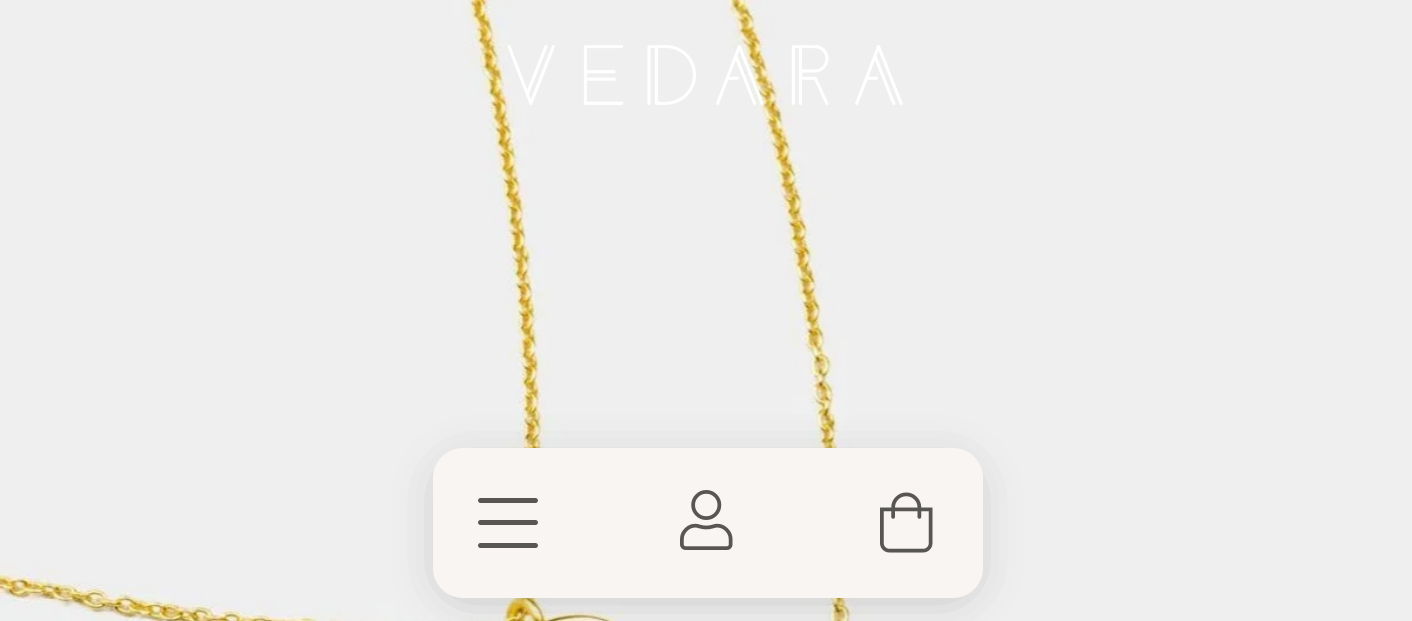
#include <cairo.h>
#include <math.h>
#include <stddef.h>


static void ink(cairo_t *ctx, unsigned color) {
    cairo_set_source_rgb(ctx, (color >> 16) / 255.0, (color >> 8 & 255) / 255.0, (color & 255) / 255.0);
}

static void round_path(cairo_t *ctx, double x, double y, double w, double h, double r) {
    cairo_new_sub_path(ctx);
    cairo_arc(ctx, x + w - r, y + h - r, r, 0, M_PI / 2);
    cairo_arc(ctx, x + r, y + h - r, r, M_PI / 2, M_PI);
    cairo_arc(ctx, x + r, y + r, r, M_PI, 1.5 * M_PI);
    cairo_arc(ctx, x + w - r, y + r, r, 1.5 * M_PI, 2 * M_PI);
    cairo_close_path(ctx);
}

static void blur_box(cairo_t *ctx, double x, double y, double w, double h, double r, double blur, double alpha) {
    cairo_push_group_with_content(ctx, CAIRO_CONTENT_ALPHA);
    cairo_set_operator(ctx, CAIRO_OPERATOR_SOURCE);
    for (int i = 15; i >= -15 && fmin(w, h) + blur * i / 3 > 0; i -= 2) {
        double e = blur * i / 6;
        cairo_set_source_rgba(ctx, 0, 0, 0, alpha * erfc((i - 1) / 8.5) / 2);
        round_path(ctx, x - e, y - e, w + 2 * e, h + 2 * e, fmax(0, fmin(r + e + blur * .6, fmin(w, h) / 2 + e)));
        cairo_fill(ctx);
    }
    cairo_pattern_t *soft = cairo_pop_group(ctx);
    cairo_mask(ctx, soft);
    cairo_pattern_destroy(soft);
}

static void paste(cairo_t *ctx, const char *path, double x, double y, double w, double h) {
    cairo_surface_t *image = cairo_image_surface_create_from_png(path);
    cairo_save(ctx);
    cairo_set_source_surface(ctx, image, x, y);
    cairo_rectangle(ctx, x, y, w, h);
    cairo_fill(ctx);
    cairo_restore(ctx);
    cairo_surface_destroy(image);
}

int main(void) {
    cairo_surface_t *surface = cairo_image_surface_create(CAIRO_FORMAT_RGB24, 1412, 621);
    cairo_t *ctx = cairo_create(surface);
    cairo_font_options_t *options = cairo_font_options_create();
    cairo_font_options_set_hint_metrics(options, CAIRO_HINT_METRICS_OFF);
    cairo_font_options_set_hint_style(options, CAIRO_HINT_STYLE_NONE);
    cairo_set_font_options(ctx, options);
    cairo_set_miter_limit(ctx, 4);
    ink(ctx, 0xFFFFFF);
    cairo_paint(ctx);
    paste(ctx, "media/1.png", 0, 0, 1412, 621);
    paste(ctx, "media/2.png", 508, 45, 395, 60);
    ink(ctx, 0x000000);
    blur_box(ctx, 445, 468, 525, 125, 18, 25, 0.22);
    ink(ctx, 0xF8F5F2);
    round_path(ctx, 433, 448, 550, 150, 30);
    cairo_fill(ctx);
    ink(ctx, 0x585653);
    round_path(ctx, 478, 498, 60, 5, 2.5);
    cairo_fill(ctx);
    round_path(ctx, 478, 520, 60, 5, 2.5);
    cairo_fill(ctx);
    round_path(ctx, 478, 543, 60, 5, 2.5);
    cairo_fill(ctx);
    paste(ctx, "media/3.png", 680, 490, 53, 60);
    paste(ctx, "media/4.png", 880, 492, 53, 61);
    cairo_surface_write_to_png(surface, "image.png");
    cairo_font_options_destroy(options);
    cairo_destroy(ctx);
    cairo_surface_destroy(surface);
    return 0;
}
